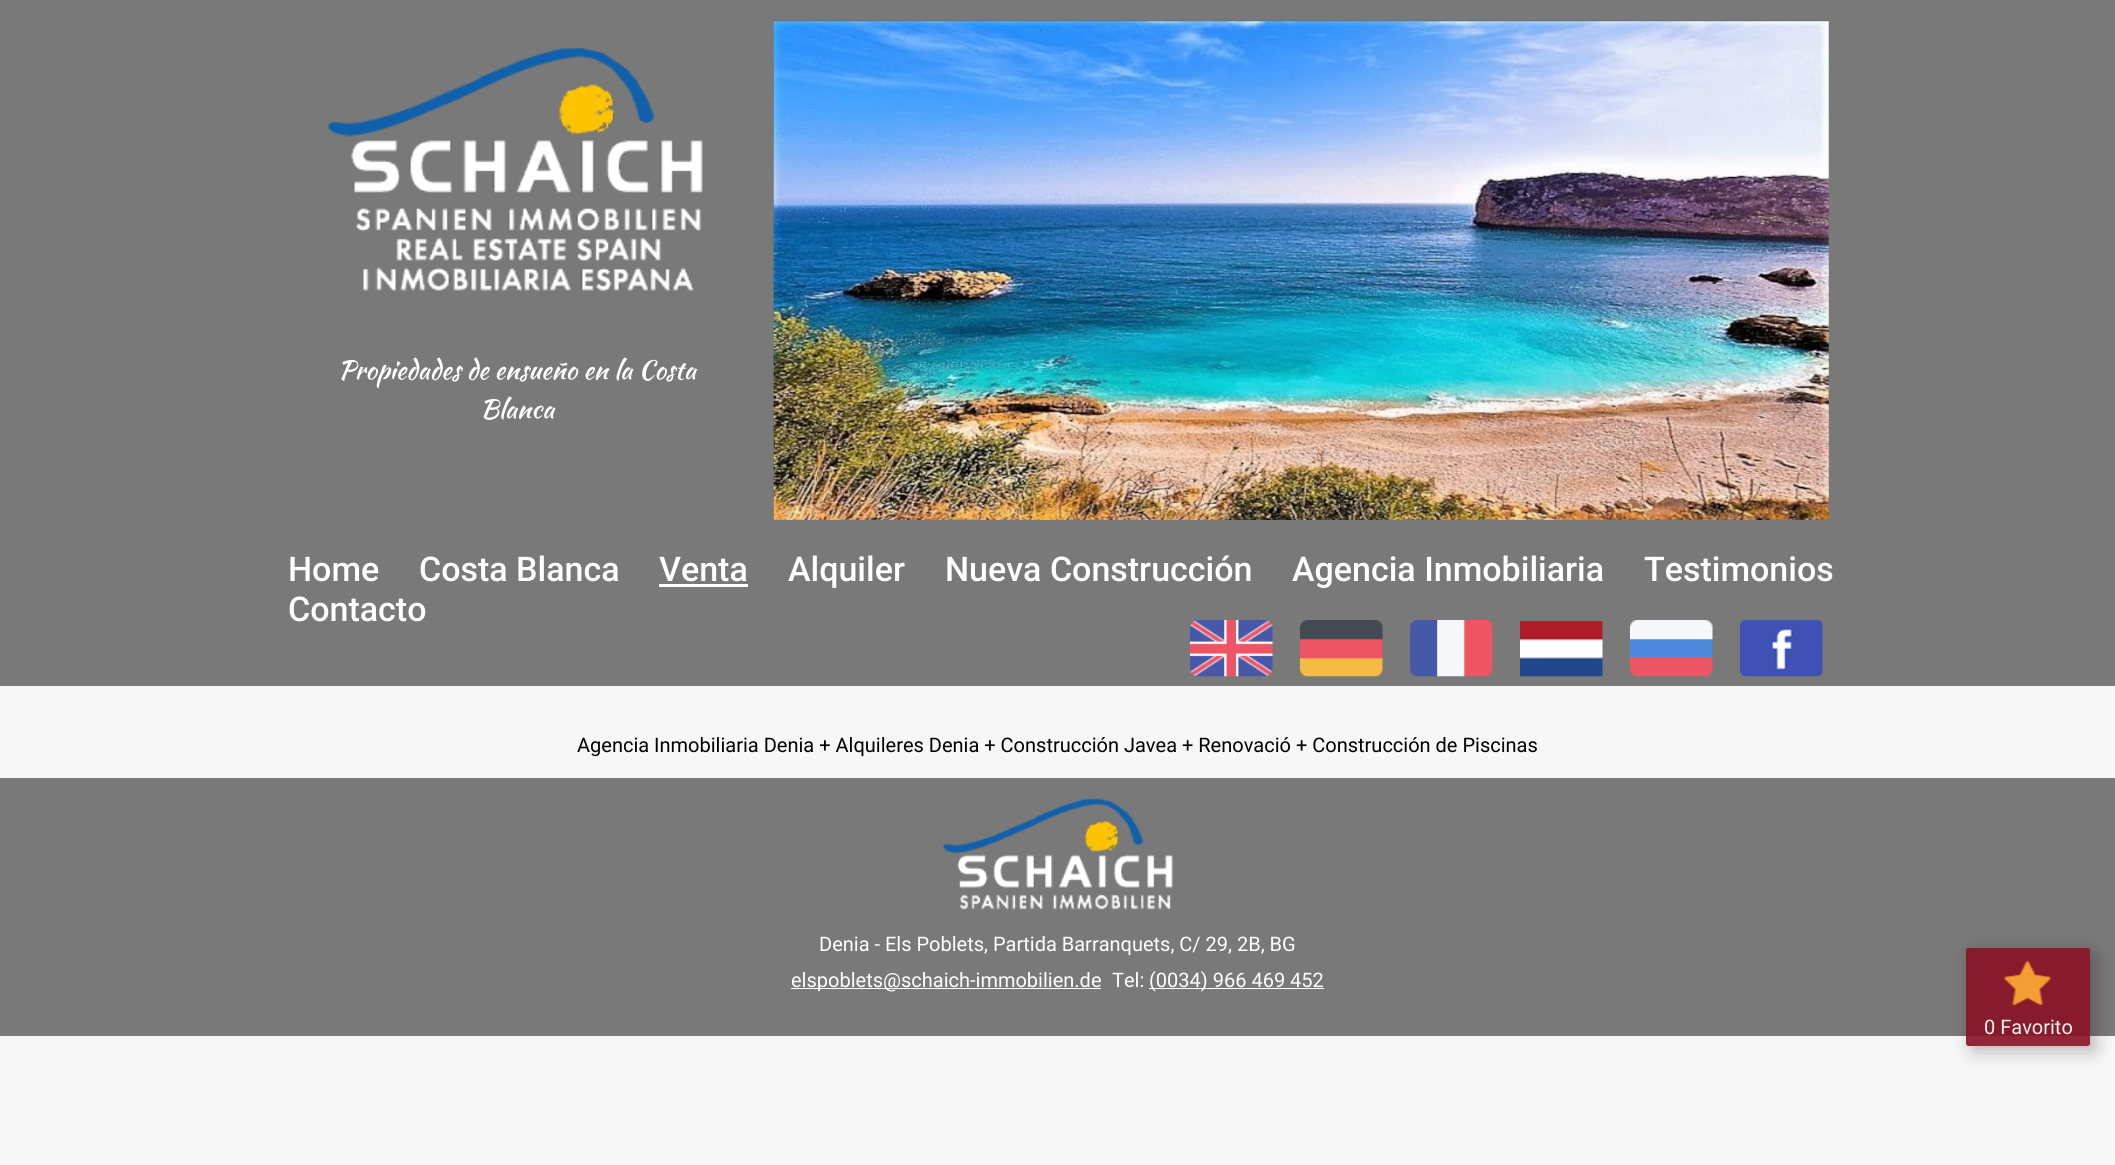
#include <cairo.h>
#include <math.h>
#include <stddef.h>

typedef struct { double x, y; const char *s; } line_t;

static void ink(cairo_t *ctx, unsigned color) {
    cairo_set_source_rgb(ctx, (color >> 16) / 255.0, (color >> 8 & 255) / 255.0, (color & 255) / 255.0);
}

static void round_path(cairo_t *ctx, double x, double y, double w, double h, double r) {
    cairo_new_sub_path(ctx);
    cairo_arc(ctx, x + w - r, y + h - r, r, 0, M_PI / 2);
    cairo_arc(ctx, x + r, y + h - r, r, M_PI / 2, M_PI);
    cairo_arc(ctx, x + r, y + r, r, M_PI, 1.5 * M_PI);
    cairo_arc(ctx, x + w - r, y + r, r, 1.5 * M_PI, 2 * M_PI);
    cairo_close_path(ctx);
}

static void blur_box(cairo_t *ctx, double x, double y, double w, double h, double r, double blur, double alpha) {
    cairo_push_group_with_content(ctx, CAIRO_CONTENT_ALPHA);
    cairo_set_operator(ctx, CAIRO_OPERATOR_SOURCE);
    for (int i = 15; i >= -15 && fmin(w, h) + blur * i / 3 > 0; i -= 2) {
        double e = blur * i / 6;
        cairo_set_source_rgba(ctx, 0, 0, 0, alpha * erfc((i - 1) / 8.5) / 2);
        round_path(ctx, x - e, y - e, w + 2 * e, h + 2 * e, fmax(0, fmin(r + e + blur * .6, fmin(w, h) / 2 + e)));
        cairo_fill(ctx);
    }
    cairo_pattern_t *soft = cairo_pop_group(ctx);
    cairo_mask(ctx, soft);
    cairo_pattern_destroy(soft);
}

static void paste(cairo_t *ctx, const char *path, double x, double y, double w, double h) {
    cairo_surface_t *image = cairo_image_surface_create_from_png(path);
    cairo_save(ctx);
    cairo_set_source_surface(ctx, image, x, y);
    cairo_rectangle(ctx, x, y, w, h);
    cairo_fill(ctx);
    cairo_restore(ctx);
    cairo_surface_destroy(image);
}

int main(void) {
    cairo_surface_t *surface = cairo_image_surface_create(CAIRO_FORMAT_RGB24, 2115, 1165);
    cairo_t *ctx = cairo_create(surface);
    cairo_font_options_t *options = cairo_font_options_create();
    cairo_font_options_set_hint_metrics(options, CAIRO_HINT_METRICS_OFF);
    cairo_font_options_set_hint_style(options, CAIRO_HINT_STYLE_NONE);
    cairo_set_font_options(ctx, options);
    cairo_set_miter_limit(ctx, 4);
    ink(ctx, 0xF7F7F7);
    cairo_paint(ctx);
    ink(ctx, 0x797979);
    cairo_rectangle(ctx, 0, 0, 2115, 686);
    cairo_fill(ctx);
    paste(ctx, "media/1.png", 328, 48, 375, 243);
    cairo_select_font_face(ctx, "Kaushan Script", CAIRO_FONT_SLANT_NORMAL, CAIRO_FONT_WEIGHT_NORMAL);
    cairo_set_font_size(ctx, 26);
    ink(ctx, 0xFFFFFF);
    cairo_move_to(ctx, 338, 379);
    cairo_show_text(ctx, "Propiedades de ensueño en la Costa");
    cairo_move_to(ctx, 480, 418);
    cairo_show_text(ctx, "Blanca");
    cairo_save(ctx);
    cairo_rectangle(ctx, 773, 20, 1056, 500);
    cairo_clip(ctx);
    cairo_rectangle(ctx, 773.5, 20.5, 1057, 502);
    ink(ctx, 0x717171);
    cairo_set_line_width(ctx, 1);
    cairo_stroke(ctx);
    cairo_restore(ctx);
    paste(ctx, "media/2.png", 773, 21, 1056, 499);
    cairo_select_font_face(ctx, "Roboto Medium", CAIRO_FONT_SLANT_NORMAL, CAIRO_FONT_WEIGHT_NORMAL);
    cairo_set_font_size(ctx, 34);
    {
        static const line_t items[] = {
            {288, 581, "Home"},
            {419, 581, "Costa Blanca"},
            {659, 581, "Venta"},
        };
        for (size_t i = 0; i < sizeof items / sizeof *items; i++) {
            cairo_move_to(ctx, items[i].x, items[i].y);
            cairo_show_text(ctx, items[i].s);
        }
    }
    cairo_rectangle(ctx, 659, 584, 89, 3);
    cairo_fill(ctx);
    {
        static const line_t items[] = {
            {788, 581, "Alquiler"},
            {945, 581, "Nueva Construcción"},
            {1292, 581, "Agencia Inmobiliaria"},
            {1644, 581, "Testimonios"},
            {288, 621, "Contacto"},
        };
        for (size_t i = 0; i < sizeof items / sizeof *items; i++) {
            cairo_move_to(ctx, items[i].x, items[i].y);
            cairo_show_text(ctx, items[i].s);
        }
    }
    paste(ctx, "media/3.png", 1190, 620, 83, 57);
    paste(ctx, "media/4.png", 1300, 620, 83, 57);
    paste(ctx, "media/5.png", 1410, 620, 83, 57);
    paste(ctx, "media/6.png", 1520, 621, 83, 56);
    paste(ctx, "media/7.png", 1630, 620, 83, 57);
    paste(ctx, "media/8.png", 1740, 620, 83, 57);
    cairo_select_font_face(ctx, "Roboto", CAIRO_FONT_SLANT_NORMAL, CAIRO_FONT_WEIGHT_NORMAL);
    cairo_set_font_size(ctx, 20);
    ink(ctx, 0x000000);
    cairo_move_to(ctx, 577, 752);
    cairo_show_text(ctx, "Agencia Inmobiliaria Denia + Alquileres Denia + Construcción Javea + Renovació + Construcción de Piscinas");
    ink(ctx, 0x797979);
    cairo_rectangle(ctx, 0, 778, 2115, 258);
    cairo_fill(ctx);
    paste(ctx, "media/9.png", 942, 798, 231, 112);
    ink(ctx, 0xFFFFFF);
    cairo_move_to(ctx, 819, 951);
    cairo_show_text(ctx, "Denia - Els Poblets, Partida Barranquets, C/ 29, 2B, BG");
    cairo_rectangle(ctx, 791, 988, 310, 1);
    cairo_fill(ctx);
    cairo_move_to(ctx, 791, 987);
    cairo_show_text(ctx, "elspoblets@schaich-immobilien.de");
    cairo_move_to(ctx, 1112, 987);
    cairo_show_text(ctx, "Tel:");
    cairo_rectangle(ctx, 1149, 988, 175, 1);
    cairo_fill(ctx);
    cairo_move_to(ctx, 1149, 987);
    cairo_show_text(ctx, "(0034) 966 469 452");
    cairo_save(ctx);
    cairo_set_fill_rule(ctx, CAIRO_FILL_RULE_EVEN_ODD);
    cairo_new_path(ctx);
    cairo_move_to(ctx, 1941, 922);
    cairo_line_to(ctx, 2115, 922);
    cairo_line_to(ctx, 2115, 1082);
    cairo_line_to(ctx, 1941, 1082);
    cairo_close_path(ctx);
    cairo_move_to(ctx, 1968.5, 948);
    cairo_line_to(ctx, 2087.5, 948);
    cairo_curve_to(ctx, 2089, 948, 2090, 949, 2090, 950.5);
    cairo_line_to(ctx, 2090, 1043.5);
    cairo_curve_to(ctx, 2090, 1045, 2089, 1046, 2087.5, 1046);
    cairo_line_to(ctx, 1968.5, 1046);
    cairo_curve_to(ctx, 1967, 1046, 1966, 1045, 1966, 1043.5);
    cairo_line_to(ctx, 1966, 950.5);
    cairo_curve_to(ctx, 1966, 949, 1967, 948, 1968.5, 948);
    cairo_close_path(ctx);
    cairo_clip(ctx);
    ink(ctx, 0x000000);
    blur_box(ctx, 1974, 955, 119, 94, 0, 10.5, 0.32);
    cairo_restore(ctx);
    cairo_set_source_rgba(ctx, 0.537, 0.067, 0.137, 0.9);
    round_path(ctx, 1966, 948, 124, 98, 2.5);
    cairo_fill(ctx);
    paste(ctx, "media/10.png", 2003, 961, 49, 45);
    ink(ctx, 0xF2F2F2);
    cairo_move_to(ctx, 1984, 1034);
    cairo_show_text(ctx, "0 Favorito");
    cairo_surface_write_to_png(surface, "image.png");
    cairo_font_options_destroy(options);
    cairo_destroy(ctx);
    cairo_surface_destroy(surface);
    return 0;
}
